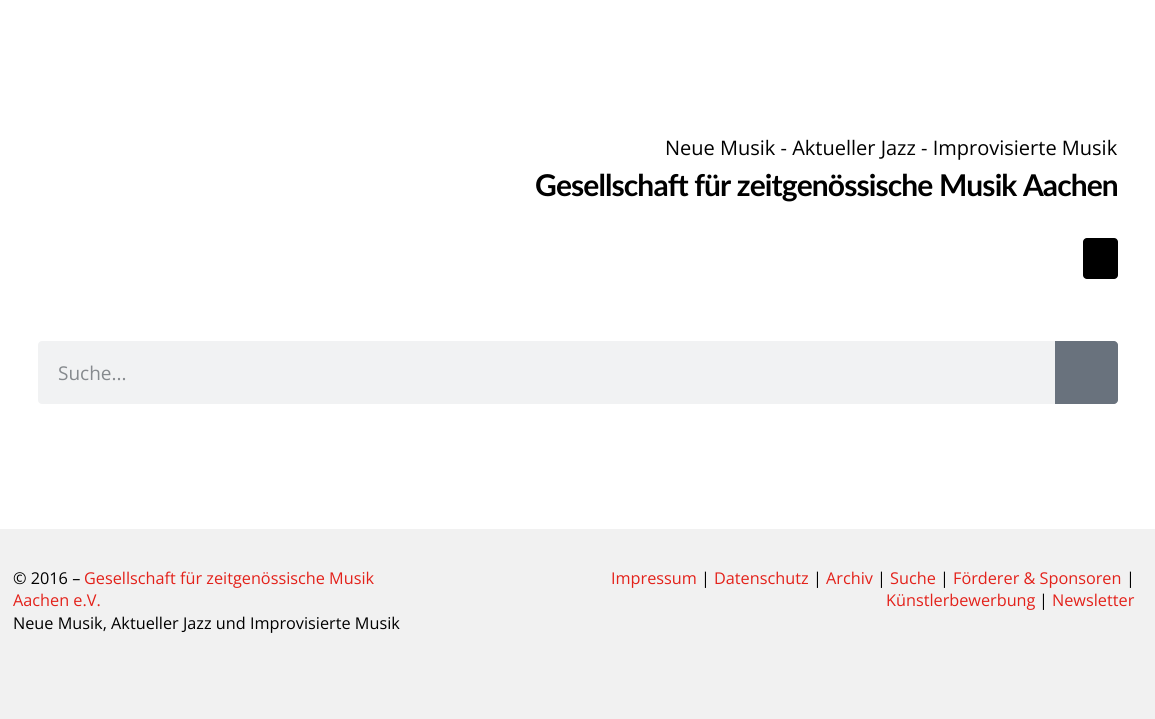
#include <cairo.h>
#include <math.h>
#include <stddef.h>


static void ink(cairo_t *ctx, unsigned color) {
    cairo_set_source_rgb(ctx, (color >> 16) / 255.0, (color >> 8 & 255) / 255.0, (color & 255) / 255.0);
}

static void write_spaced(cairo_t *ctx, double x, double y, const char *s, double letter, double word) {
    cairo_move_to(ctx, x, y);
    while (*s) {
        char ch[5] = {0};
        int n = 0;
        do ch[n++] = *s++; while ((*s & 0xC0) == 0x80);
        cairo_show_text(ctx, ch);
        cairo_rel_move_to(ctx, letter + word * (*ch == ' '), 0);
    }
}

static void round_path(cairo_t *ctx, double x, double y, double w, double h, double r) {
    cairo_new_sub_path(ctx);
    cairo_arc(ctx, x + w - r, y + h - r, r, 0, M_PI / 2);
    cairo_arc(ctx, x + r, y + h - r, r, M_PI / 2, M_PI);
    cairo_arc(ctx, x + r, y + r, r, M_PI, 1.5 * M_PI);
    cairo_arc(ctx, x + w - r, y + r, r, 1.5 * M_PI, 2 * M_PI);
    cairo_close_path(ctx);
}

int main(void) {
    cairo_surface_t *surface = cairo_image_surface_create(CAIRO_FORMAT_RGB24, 1155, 719);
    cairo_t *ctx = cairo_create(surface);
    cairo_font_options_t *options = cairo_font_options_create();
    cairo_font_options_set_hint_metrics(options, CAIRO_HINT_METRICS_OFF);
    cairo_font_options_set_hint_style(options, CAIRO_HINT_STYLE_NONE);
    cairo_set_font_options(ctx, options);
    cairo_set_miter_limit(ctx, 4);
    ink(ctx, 0xF1F1F1);
    cairo_paint(ctx);
    ink(ctx, 0xFFFFFF);
    cairo_rectangle(ctx, 0, 0, 1155, 529);
    cairo_fill(ctx);
    cairo_select_font_face(ctx, "Open Sans", CAIRO_FONT_SLANT_NORMAL, CAIRO_FONT_WEIGHT_NORMAL);
    cairo_set_font_size(ctx, 20);
    ink(ctx, 0x000000);
    cairo_move_to(ctx, 665, 155);
    cairo_show_text(ctx, "Neue Musik - Aktueller Jazz - Improvisierte Musik");
    cairo_select_font_face(ctx, "Lato", CAIRO_FONT_SLANT_NORMAL, CAIRO_FONT_WEIGHT_BOLD);
    cairo_set_font_size(ctx, 30);
    write_spaced(ctx, 535, 196, "Gesellschaft für zeitgenössische Musik Aachen", -0.9, 0);
    round_path(ctx, 1083, 238, 35, 41, 4);
    cairo_fill(ctx);
    ink(ctx, 0xF1F2F3);
    round_path(ctx, 38, 341, 1080, 63, 4);
    cairo_fill(ctx);
    cairo_select_font_face(ctx, "Open Sans", CAIRO_FONT_SLANT_NORMAL, CAIRO_FONT_WEIGHT_NORMAL);
    cairo_set_font_size(ctx, 19);
    ink(ctx, 0x868A8E);
    cairo_move_to(ctx, 58, 380);
    cairo_show_text(ctx, "Suche...");
    ink(ctx, 0x69727D);
    cairo_new_path(ctx);
    cairo_move_to(ctx, 1055, 341);
    cairo_line_to(ctx, 1114, 341);
    cairo_curve_to(ctx, 1116, 341, 1118, 343, 1118, 345);
    cairo_line_to(ctx, 1118, 400);
    cairo_curve_to(ctx, 1118, 402, 1116, 404, 1114, 404);
    cairo_line_to(ctx, 1055, 404);
    cairo_close_path(ctx);
    cairo_fill(ctx);
    cairo_set_font_size(ctx, 16.25);
    ink(ctx, 0x000000);
    cairo_move_to(ctx, 13, 584);
    cairo_show_text(ctx, "© 2016 –");
    ink(ctx, 0xE3211A);
    cairo_move_to(ctx, 84, 584);
    cairo_show_text(ctx, "Gesellschaft für zeitgenössische Musik");
    cairo_move_to(ctx, 13, 606);
    cairo_show_text(ctx, "Aachen e.V.");
    ink(ctx, 0x000000);
    cairo_move_to(ctx, 13, 629);
    cairo_show_text(ctx, "Neue Musik, Aktueller Jazz und Improvisierte Musik");
    ink(ctx, 0xE3211A);
    cairo_move_to(ctx, 611, 584);
    cairo_show_text(ctx, "Impressum");
    ink(ctx, 0x000000);
    cairo_move_to(ctx, 701, 584);
    cairo_show_text(ctx, "|");
    ink(ctx, 0xE3211A);
    cairo_move_to(ctx, 714, 584);
    cairo_show_text(ctx, "Datenschutz");
    ink(ctx, 0x000000);
    cairo_move_to(ctx, 813, 584);
    cairo_show_text(ctx, "|");
    ink(ctx, 0xE3211A);
    cairo_move_to(ctx, 826, 584);
    cairo_show_text(ctx, "Archiv");
    ink(ctx, 0x000000);
    cairo_move_to(ctx, 877, 584);
    cairo_show_text(ctx, "|");
    ink(ctx, 0xE3211A);
    cairo_move_to(ctx, 890, 584);
    cairo_show_text(ctx, "Suche");
    ink(ctx, 0x000000);
    cairo_move_to(ctx, 940, 584);
    cairo_show_text(ctx, "|");
    ink(ctx, 0xE3211A);
    cairo_move_to(ctx, 953, 584);
    cairo_show_text(ctx, "Förderer & Sponsoren");
    ink(ctx, 0x000000);
    cairo_move_to(ctx, 1126, 584);
    cairo_show_text(ctx, "|");
    ink(ctx, 0xE3211A);
    cairo_move_to(ctx, 886, 606);
    cairo_show_text(ctx, "Künstlerbewerbung");
    ink(ctx, 0x000000);
    cairo_move_to(ctx, 1039, 606);
    cairo_show_text(ctx, "|");
    ink(ctx, 0xE3211A);
    cairo_move_to(ctx, 1052, 606);
    cairo_show_text(ctx, "Newsletter");
    cairo_surface_write_to_png(surface, "image.png");
    cairo_font_options_destroy(options);
    cairo_destroy(ctx);
    cairo_surface_destroy(surface);
    return 0;
}
